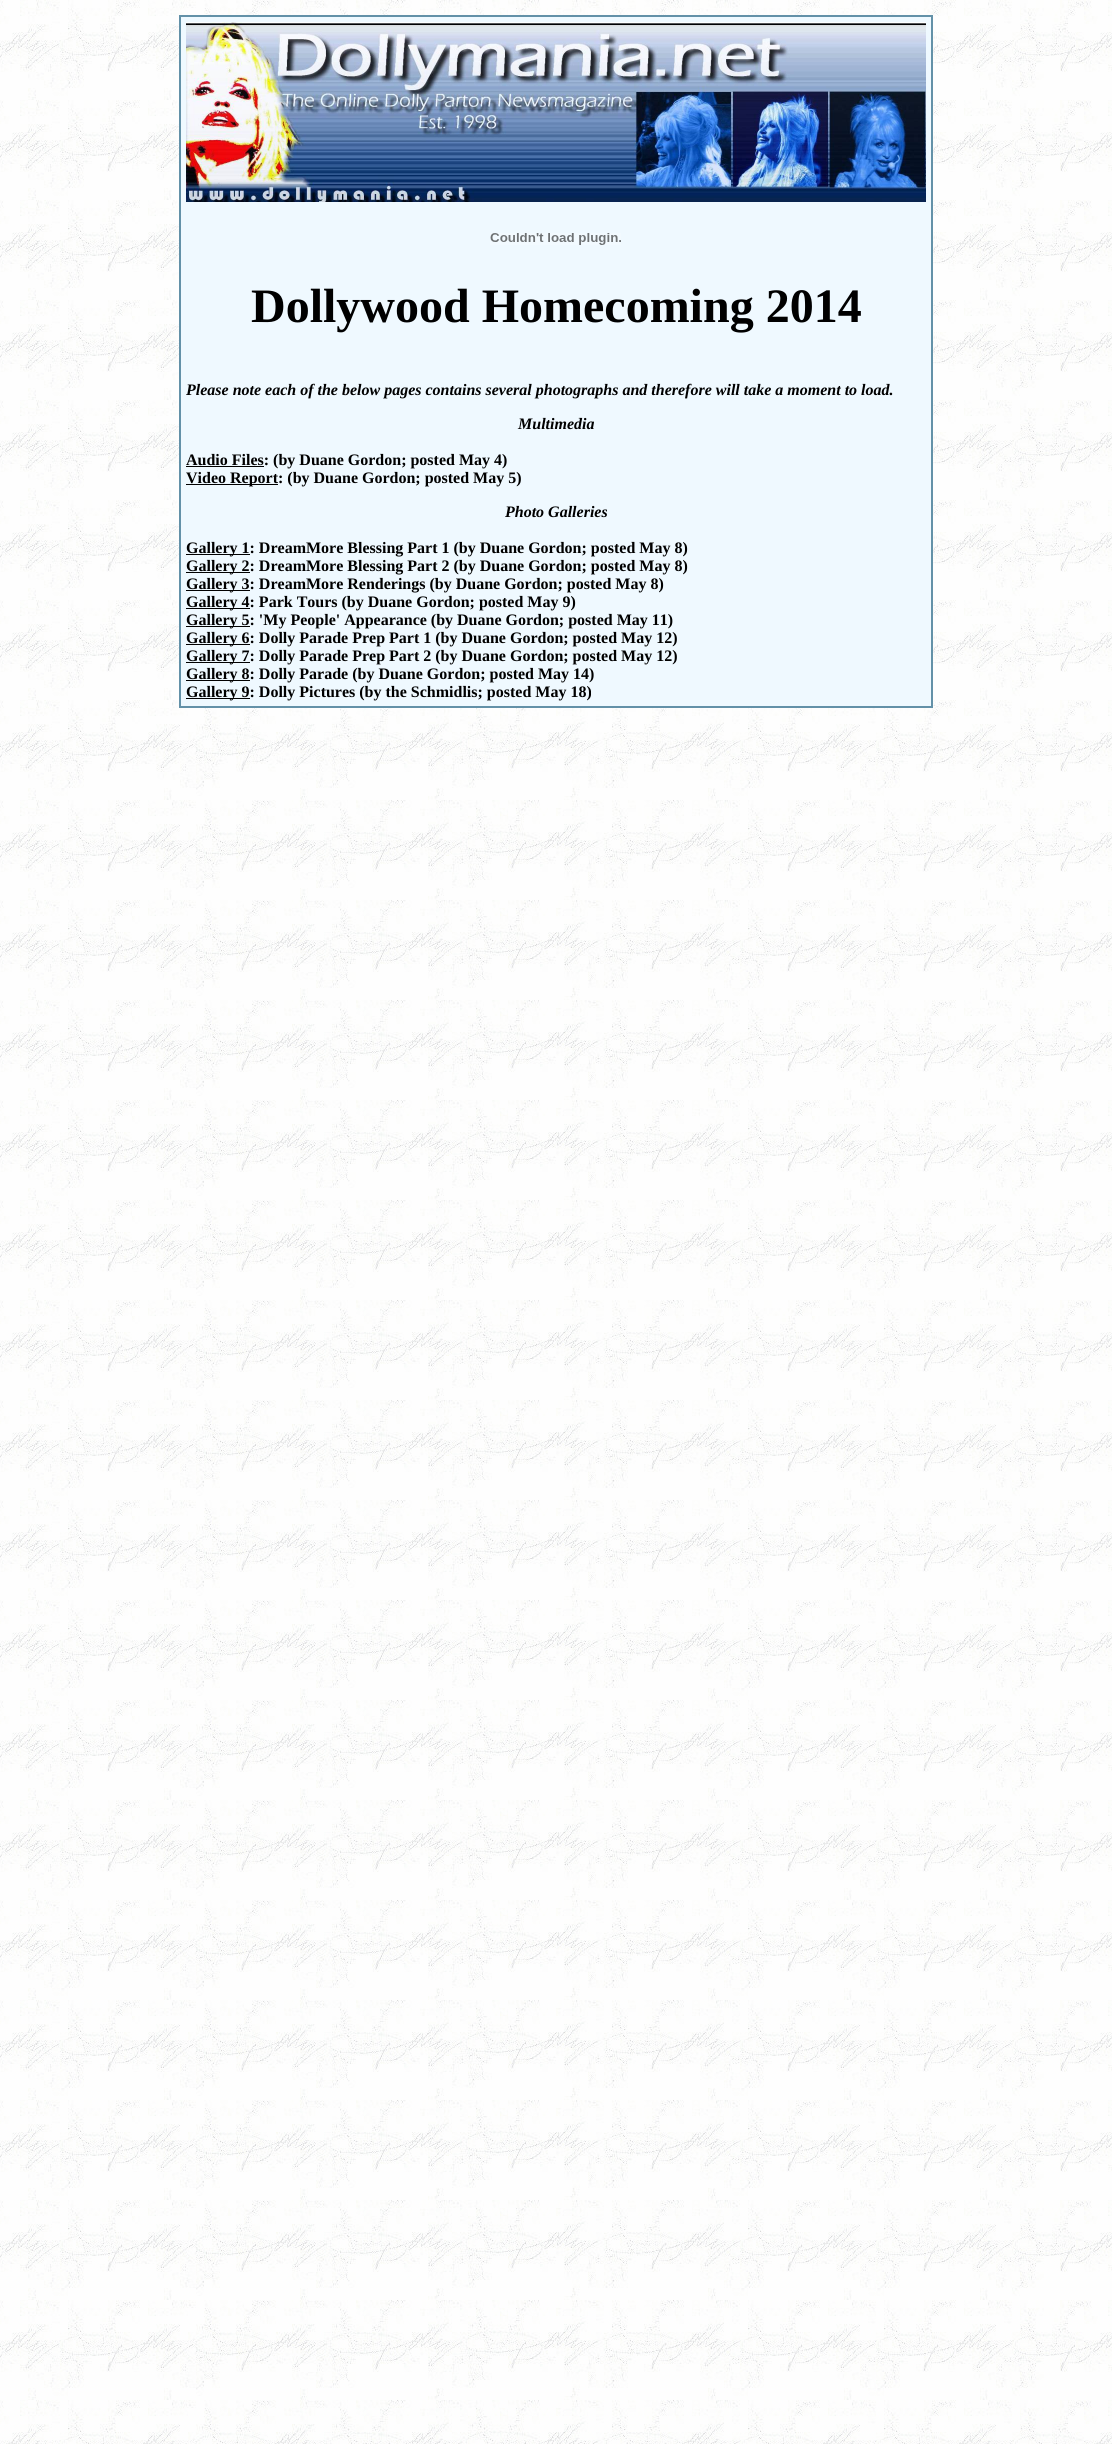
#include <cairo.h>
#include <math.h>
#include <stddef.h>


static void ink(cairo_t *ctx, unsigned color) {
    cairo_set_source_rgb(ctx, (color >> 16) / 255.0, (color >> 8 & 255) / 255.0, (color & 255) / 255.0);
}

static void paste(cairo_t *ctx, const char *path, double x, double y, double w, double h) {
    cairo_surface_t *image = cairo_image_surface_create_from_png(path);
    cairo_save(ctx);
    cairo_set_source_surface(ctx, image, x, y);
    cairo_rectangle(ctx, x, y, w, h);
    cairo_fill(ctx);
    cairo_restore(ctx);
    cairo_surface_destroy(image);
}

int main(void) {
    cairo_surface_t *surface = cairo_image_surface_create(CAIRO_FORMAT_RGB24, 1112, 2444);
    cairo_t *ctx = cairo_create(surface);
    cairo_font_options_t *options = cairo_font_options_create();
    cairo_font_options_set_hint_metrics(options, CAIRO_HINT_METRICS_OFF);
    cairo_font_options_set_hint_style(options, CAIRO_HINT_STYLE_NONE);
    cairo_set_font_options(ctx, options);
    cairo_set_miter_limit(ctx, 4);
    ink(ctx, 0xFFFFFF);
    cairo_paint(ctx);
    paste(ctx, "media/1.png", 0, 0, 1112, 2444);
    ink(ctx, 0xEFF9FF);
    cairo_rectangle(ctx, 181, 17, 750, 689);
    cairo_fill(ctx);
    cairo_rectangle(ctx, 179.5, 15.5, 753, 692);
    ink(ctx, 0x6391A8);
    cairo_set_line_width(ctx, 1);
    cairo_stroke(ctx);
    cairo_rectangle(ctx, 180.5, 16.5, 751, 690);
    cairo_stroke(ctx);
    paste(ctx, "media/2.png", 186, 22, 740, 180);
    paste(ctx, "media/3.png", 490, 233, 131, 12);
    cairo_select_font_face(ctx, "Liberation Serif", CAIRO_FONT_SLANT_NORMAL, CAIRO_FONT_WEIGHT_BOLD);
    cairo_set_font_size(ctx, 48);
    ink(ctx, 0x000000);
    cairo_move_to(ctx, 251, 322);
    cairo_show_text(ctx, "Dollywood Homecoming 2014");
    cairo_select_font_face(ctx, "Liberation Serif", CAIRO_FONT_SLANT_ITALIC, CAIRO_FONT_WEIGHT_BOLD);
    cairo_set_font_size(ctx, 16);
    cairo_move_to(ctx, 186, 395);
    cairo_show_text(ctx, "Please note each of the below pages contains several photographs and therefore will take a moment to load.");
    cairo_move_to(ctx, 518, 429);
    cairo_show_text(ctx, "Multimedia");
    cairo_rectangle(ctx, 186, 466, 78, 1);
    cairo_fill(ctx);
    cairo_select_font_face(ctx, "Liberation Serif", CAIRO_FONT_SLANT_NORMAL, CAIRO_FONT_WEIGHT_BOLD);
    cairo_move_to(ctx, 186, 465);
    cairo_show_text(ctx, "Audio Files: (by Duane Gordon; posted May 4)");
    cairo_rectangle(ctx, 186, 484, 92, 1);
    cairo_fill(ctx);
    cairo_move_to(ctx, 186, 483);
    cairo_show_text(ctx, "Video Report: (by Duane Gordon; posted May 5)");
    cairo_select_font_face(ctx, "Liberation Serif", CAIRO_FONT_SLANT_ITALIC, CAIRO_FONT_WEIGHT_BOLD);
    cairo_move_to(ctx, 505, 517);
    cairo_show_text(ctx, "Photo Galleries");
    cairo_rectangle(ctx, 186, 554, 64, 1);
    cairo_fill(ctx);
    cairo_select_font_face(ctx, "Liberation Serif", CAIRO_FONT_SLANT_NORMAL, CAIRO_FONT_WEIGHT_BOLD);
    cairo_move_to(ctx, 186, 553);
    cairo_show_text(ctx, "Gallery 1: DreamMore Blessing Part 1 (by Duane Gordon; posted May 8)");
    cairo_rectangle(ctx, 186, 572, 64, 1);
    cairo_fill(ctx);
    cairo_move_to(ctx, 186, 571);
    cairo_show_text(ctx, "Gallery 2: DreamMore Blessing Part 2 (by Duane Gordon; posted May 8)");
    cairo_rectangle(ctx, 186, 590, 64, 1);
    cairo_fill(ctx);
    cairo_move_to(ctx, 186, 589);
    cairo_show_text(ctx, "Gallery 3: DreamMore Renderings (by Duane Gordon; posted May 8)");
    cairo_rectangle(ctx, 186, 608, 64, 1);
    cairo_fill(ctx);
    cairo_move_to(ctx, 186, 607);
    cairo_show_text(ctx, "Gallery 4: Park Tours (by Duane Gordon; posted May 9)");
    cairo_rectangle(ctx, 186, 626, 64, 1);
    cairo_fill(ctx);
    cairo_move_to(ctx, 186, 625);
    cairo_show_text(ctx, "Gallery 5: 'My People' Appearance (by Duane Gordon; posted May 11)");
    cairo_rectangle(ctx, 186, 644, 64, 1);
    cairo_fill(ctx);
    cairo_move_to(ctx, 186, 643);
    cairo_show_text(ctx, "Gallery 6: Dolly Parade Prep Part 1 (by Duane Gordon; posted May 12)");
    cairo_rectangle(ctx, 186, 662, 64, 1);
    cairo_fill(ctx);
    cairo_move_to(ctx, 186, 661);
    cairo_show_text(ctx, "Gallery 7: Dolly Parade Prep Part 2 (by Duane Gordon; posted May 12)");
    cairo_rectangle(ctx, 186, 680, 64, 1);
    cairo_fill(ctx);
    cairo_move_to(ctx, 186, 679);
    cairo_show_text(ctx, "Gallery 8: Dolly Parade (by Duane Gordon; posted May 14)");
    cairo_rectangle(ctx, 186, 698, 64, 1);
    cairo_fill(ctx);
    cairo_move_to(ctx, 186, 697);
    cairo_show_text(ctx, "Gallery 9: Dolly Pictures (by the Schmidlis; posted May 18)");
    cairo_surface_write_to_png(surface, "image.png");
    cairo_font_options_destroy(options);
    cairo_destroy(ctx);
    cairo_surface_destroy(surface);
    return 0;
}
